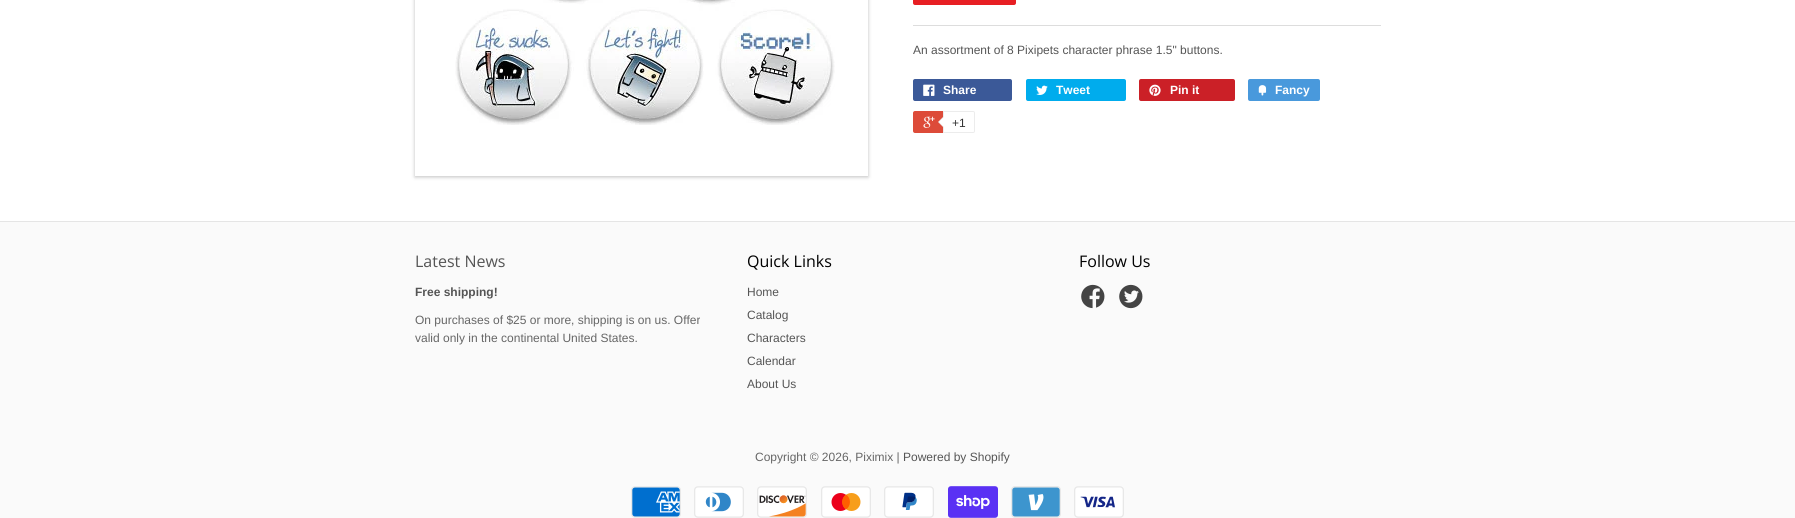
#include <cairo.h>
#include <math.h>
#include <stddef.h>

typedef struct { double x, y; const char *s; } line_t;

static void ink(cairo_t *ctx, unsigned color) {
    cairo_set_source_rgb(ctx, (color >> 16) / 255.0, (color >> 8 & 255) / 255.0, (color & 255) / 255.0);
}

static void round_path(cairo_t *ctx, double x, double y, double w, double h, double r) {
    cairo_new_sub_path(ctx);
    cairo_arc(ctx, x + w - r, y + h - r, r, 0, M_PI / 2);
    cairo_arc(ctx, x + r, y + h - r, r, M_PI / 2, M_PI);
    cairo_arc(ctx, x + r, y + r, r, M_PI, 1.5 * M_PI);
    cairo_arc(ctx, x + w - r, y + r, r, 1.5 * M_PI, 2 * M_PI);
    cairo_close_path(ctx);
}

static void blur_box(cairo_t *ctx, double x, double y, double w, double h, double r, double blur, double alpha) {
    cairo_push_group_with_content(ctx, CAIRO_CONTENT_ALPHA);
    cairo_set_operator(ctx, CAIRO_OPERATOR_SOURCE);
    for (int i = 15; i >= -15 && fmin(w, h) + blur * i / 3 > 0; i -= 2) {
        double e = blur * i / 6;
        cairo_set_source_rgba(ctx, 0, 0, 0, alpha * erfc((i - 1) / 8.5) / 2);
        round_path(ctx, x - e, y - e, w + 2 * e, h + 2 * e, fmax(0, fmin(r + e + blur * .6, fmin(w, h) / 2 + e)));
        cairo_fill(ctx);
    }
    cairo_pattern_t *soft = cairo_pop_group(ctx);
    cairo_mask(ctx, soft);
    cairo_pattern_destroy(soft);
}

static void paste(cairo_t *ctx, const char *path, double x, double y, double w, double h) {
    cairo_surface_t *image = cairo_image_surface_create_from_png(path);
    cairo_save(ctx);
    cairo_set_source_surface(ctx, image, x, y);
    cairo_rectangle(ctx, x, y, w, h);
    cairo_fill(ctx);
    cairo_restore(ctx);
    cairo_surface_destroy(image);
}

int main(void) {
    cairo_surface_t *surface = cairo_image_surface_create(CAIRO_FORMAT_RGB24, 1795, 518);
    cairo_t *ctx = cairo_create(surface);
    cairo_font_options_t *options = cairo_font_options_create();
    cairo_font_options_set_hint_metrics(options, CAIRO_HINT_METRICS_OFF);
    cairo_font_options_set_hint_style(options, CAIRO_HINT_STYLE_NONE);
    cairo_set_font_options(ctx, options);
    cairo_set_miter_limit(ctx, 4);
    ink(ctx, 0xFFFFFF);
    cairo_paint(ctx);
    cairo_save(ctx);
    cairo_set_fill_rule(ctx, CAIRO_FILL_RULE_EVEN_ODD);
    cairo_new_path(ctx);
    cairo_move_to(ctx, 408, 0);
    cairo_line_to(ctx, 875, 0);
    cairo_line_to(ctx, 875, 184);
    cairo_line_to(ctx, 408, 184);
    cairo_close_path(ctx);
    cairo_move_to(ctx, 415, -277);
    cairo_line_to(ctx, 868, -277);
    cairo_line_to(ctx, 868, 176);
    cairo_line_to(ctx, 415, 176);
    cairo_close_path(ctx);
    cairo_clip(ctx);
    ink(ctx, 0x000000);
    blur_box(ctx, 415, -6, 453, 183, 0, 2, 0.25);
    cairo_restore(ctx);
    paste(ctx, "media/1.png", 455, 0, 380, 125);
    ink(ctx, 0xDDDDDD);
    cairo_rectangle(ctx, 913, 25, 468, 1);
    cairo_fill(ctx);
    ink(ctx, 0xE71F23);
    round_path(ctx, 913, -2, 103, 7, 2);
    cairo_fill(ctx);
    cairo_select_font_face(ctx, "Liberation Sans", CAIRO_FONT_SLANT_NORMAL, CAIRO_FONT_WEIGHT_NORMAL);
    cairo_set_font_size(ctx, 12);
    ink(ctx, 0x555555);
    cairo_move_to(ctx, 913, 54);
    cairo_show_text(ctx, "An assortment of 8 Pixipets character phrase 1.5\" buttons.");
    ink(ctx, 0x3B5998);
    round_path(ctx, 913, 79, 99, 22, 2);
    cairo_fill(ctx);
    paste(ctx, "media/2.png", 923, 84, 12, 12);
    cairo_select_font_face(ctx, "Liberation Sans", CAIRO_FONT_SLANT_NORMAL, CAIRO_FONT_WEIGHT_BOLD);
    ink(ctx, 0xFFFFFF);
    cairo_move_to(ctx, 943, 94);
    cairo_show_text(ctx, "Share");
    ink(ctx, 0x00ACED);
    round_path(ctx, 1026, 79, 100, 22, 2);
    cairo_fill(ctx);
    paste(ctx, "media/3.png", 1036, 85, 12, 10);
    ink(ctx, 0xFFFFFF);
    cairo_move_to(ctx, 1056, 94);
    cairo_show_text(ctx, "Tweet");
    ink(ctx, 0xCB2027);
    round_path(ctx, 1139, 79, 96, 22, 2);
    cairo_fill(ctx);
    paste(ctx, "media/4.png", 1149, 84, 12, 12);
    ink(ctx, 0xFFFFFF);
    cairo_move_to(ctx, 1170, 94);
    cairo_show_text(ctx, "Pin it");
    ink(ctx, 0x4999DC);
    round_path(ctx, 1248, 79, 72, 22, 2);
    cairo_fill(ctx);
    paste(ctx, "media/5.png", 1258, 85, 9, 11);
    ink(ctx, 0xFFFFFF);
    cairo_move_to(ctx, 1275, 94);
    cairo_show_text(ctx, "Fancy");
    ink(ctx, 0xDD4B39);
    round_path(ctx, 913, 111, 60, 22, 2);
    cairo_fill(ctx);
    paste(ctx, "media/6.png", 923, 116, 12, 12);
    ink(ctx, 0xFFFFFF);
    cairo_new_path(ctx);
    cairo_move_to(ctx, 943.5, 111.5);
    cairo_line_to(ctx, 973, 111.5);
    cairo_curve_to(ctx, 974, 111.5, 974.5, 112, 974.5, 113);
    cairo_line_to(ctx, 974.5, 131);
    cairo_curve_to(ctx, 974.5, 132, 974, 132.5, 973, 132.5);
    cairo_line_to(ctx, 943.5, 132.5);
    cairo_close_path(ctx);
    cairo_fill_preserve(ctx);
    ink(ctx, 0xECECEC);
    cairo_set_line_width(ctx, 1);
    cairo_stroke(ctx);
    cairo_new_path(ctx);
    cairo_move_to(ctx, 944, 116);
    cairo_line_to(ctx, 944, 128);
    cairo_line_to(ctx, 938, 122);
    cairo_close_path(ctx);
    cairo_fill(ctx);
    ink(ctx, 0xFFFFFF);
    cairo_new_path(ctx);
    cairo_move_to(ctx, 945, 116);
    cairo_line_to(ctx, 945, 128);
    cairo_line_to(ctx, 939, 122);
    cairo_close_path(ctx);
    cairo_fill(ctx);
    cairo_select_font_face(ctx, "Liberation Sans", CAIRO_FONT_SLANT_NORMAL, CAIRO_FONT_WEIGHT_NORMAL);
    ink(ctx, 0x333333);
    cairo_move_to(ctx, 952, 127);
    cairo_show_text(ctx, "+1");
    ink(ctx, 0xFAFAFA);
    cairo_rectangle(ctx, 0, 222, 1795, 296);
    cairo_fill(ctx);
    ink(ctx, 0xE5E5E5);
    cairo_rectangle(ctx, 0, 221, 1795, 1);
    cairo_fill(ctx);
    cairo_select_font_face(ctx, "Open Sans", CAIRO_FONT_SLANT_NORMAL, CAIRO_FONT_WEIGHT_NORMAL);
    cairo_set_font_size(ctx, 16);
    ink(ctx, 0x555555);
    cairo_move_to(ctx, 415, 267);
    cairo_show_text(ctx, "Latest News");
    cairo_select_font_face(ctx, "Liberation Sans", CAIRO_FONT_SLANT_NORMAL, CAIRO_FONT_WEIGHT_BOLD);
    cairo_set_font_size(ctx, 12);
    cairo_move_to(ctx, 415, 296);
    cairo_show_text(ctx, "Free shipping!");
    cairo_select_font_face(ctx, "Liberation Sans", CAIRO_FONT_SLANT_NORMAL, CAIRO_FONT_WEIGHT_NORMAL);
    ink(ctx, 0x666666);
    cairo_move_to(ctx, 415, 324);
    cairo_show_text(ctx, "On purchases of $25 or more, shipping is on us. Offer");
    cairo_move_to(ctx, 415, 342);
    cairo_show_text(ctx, "valid only in the continental United States.");
    cairo_select_font_face(ctx, "Open Sans", CAIRO_FONT_SLANT_NORMAL, CAIRO_FONT_WEIGHT_NORMAL);
    cairo_set_font_size(ctx, 16);
    ink(ctx, 0x000000);
    cairo_move_to(ctx, 747, 267);
    cairo_show_text(ctx, "Quick Links");
    cairo_select_font_face(ctx, "Liberation Sans", CAIRO_FONT_SLANT_NORMAL, CAIRO_FONT_WEIGHT_NORMAL);
    cairo_set_font_size(ctx, 12);
    ink(ctx, 0x555555);
    {
        static const line_t items[] = {
            {747, 296, "Home"},
            {747, 319, "Catalog"},
            {747, 342, "Characters"},
            {747, 365, "Calendar"},
            {747, 388, "About Us"},
        };
        for (size_t i = 0; i < sizeof items / sizeof *items; i++) {
            cairo_move_to(ctx, items[i].x, items[i].y);
            cairo_show_text(ctx, items[i].s);
        }
    }
    cairo_select_font_face(ctx, "Open Sans", CAIRO_FONT_SLANT_NORMAL, CAIRO_FONT_WEIGHT_NORMAL);
    cairo_set_font_size(ctx, 16);
    ink(ctx, 0x000000);
    cairo_move_to(ctx, 1079, 267);
    cairo_show_text(ctx, "Follow Us");
    paste(ctx, "media/7.png", 1081, 284, 24, 25);
    paste(ctx, "media/8.png", 1119, 284, 24, 25);
    cairo_select_font_face(ctx, "Liberation Sans", CAIRO_FONT_SLANT_NORMAL, CAIRO_FONT_WEIGHT_NORMAL);
    cairo_set_font_size(ctx, 12);
    ink(ctx, 0x666666);
    cairo_move_to(ctx, 755, 461);
    cairo_show_text(ctx, "Copyright © 2026, Piximix |");
    ink(ctx, 0x555555);
    cairo_move_to(ctx, 903, 461);
    cairo_show_text(ctx, "Powered by Shopify");
    paste(ctx, "media/9.png", 631, 486, 50, 32);
    paste(ctx, "media/10.png", 694, 486, 50, 32);
    paste(ctx, "media/11.png", 757, 486, 50, 32);
    paste(ctx, "media/12.png", 821, 486, 50, 32);
    paste(ctx, "media/13.png", 884, 486, 50, 32);
    paste(ctx, "media/14.png", 948, 486, 50, 32);
    paste(ctx, "media/15.png", 1011, 486, 50, 32);
    paste(ctx, "media/16.png", 1074, 486, 50, 32);
    cairo_surface_write_to_png(surface, "image.png");
    cairo_font_options_destroy(options);
    cairo_destroy(ctx);
    cairo_surface_destroy(surface);
    return 0;
}
